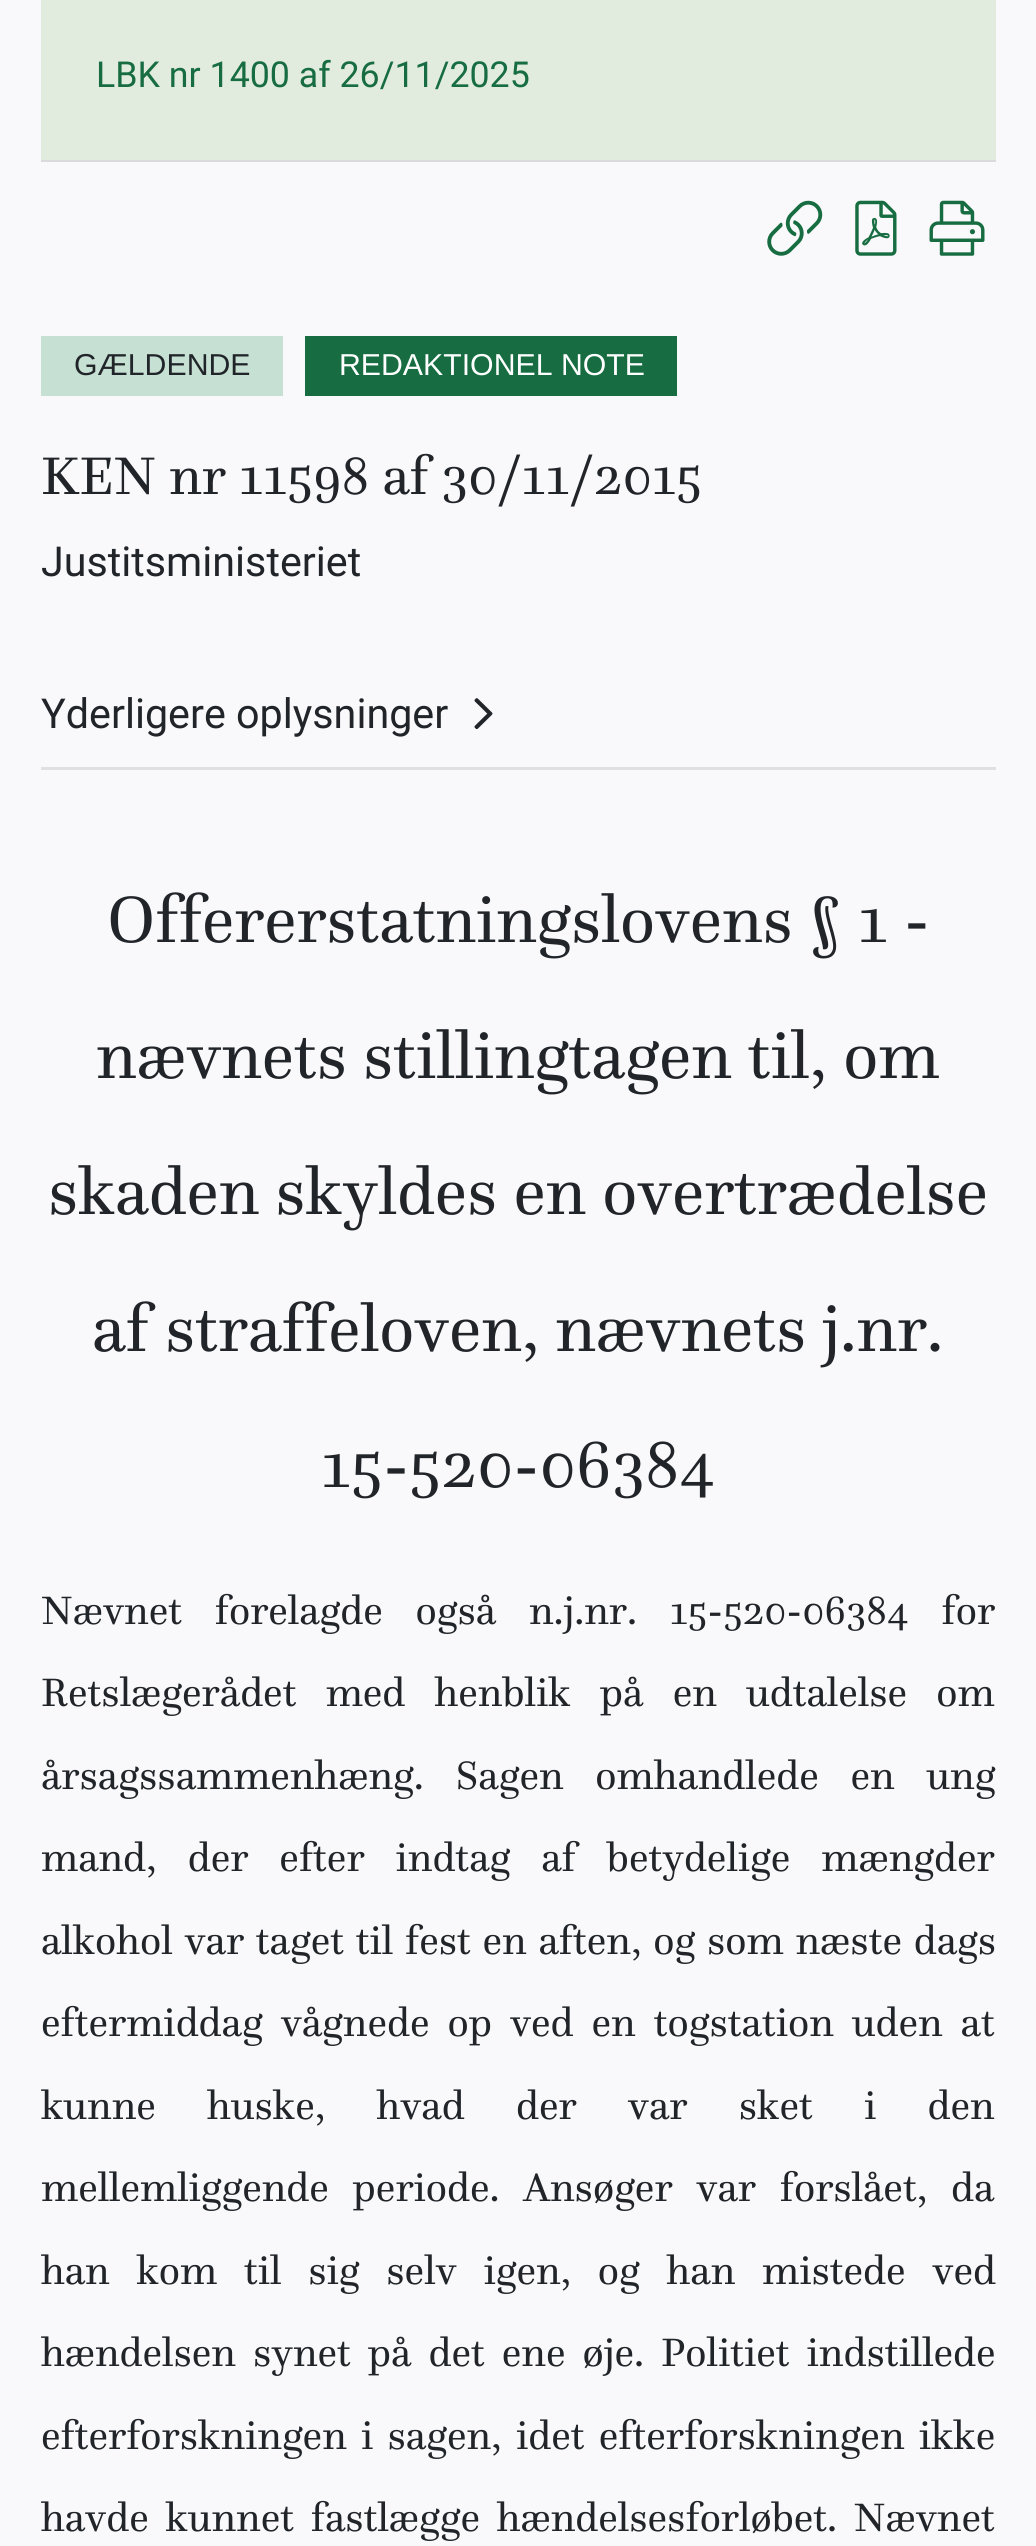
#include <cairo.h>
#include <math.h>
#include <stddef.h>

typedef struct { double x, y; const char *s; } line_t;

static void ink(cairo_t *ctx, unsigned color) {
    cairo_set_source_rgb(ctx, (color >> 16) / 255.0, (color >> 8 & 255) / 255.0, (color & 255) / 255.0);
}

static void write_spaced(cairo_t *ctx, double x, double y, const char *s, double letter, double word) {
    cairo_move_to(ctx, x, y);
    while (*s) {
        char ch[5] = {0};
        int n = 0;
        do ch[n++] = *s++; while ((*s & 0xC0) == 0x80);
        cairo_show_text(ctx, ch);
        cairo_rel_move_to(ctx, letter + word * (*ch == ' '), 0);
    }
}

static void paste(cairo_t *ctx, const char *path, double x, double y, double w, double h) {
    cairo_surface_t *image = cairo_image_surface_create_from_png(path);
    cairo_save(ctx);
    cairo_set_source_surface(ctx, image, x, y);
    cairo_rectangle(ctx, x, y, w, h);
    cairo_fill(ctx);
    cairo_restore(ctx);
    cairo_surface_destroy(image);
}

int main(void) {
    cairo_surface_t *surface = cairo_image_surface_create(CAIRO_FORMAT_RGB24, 1036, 2546);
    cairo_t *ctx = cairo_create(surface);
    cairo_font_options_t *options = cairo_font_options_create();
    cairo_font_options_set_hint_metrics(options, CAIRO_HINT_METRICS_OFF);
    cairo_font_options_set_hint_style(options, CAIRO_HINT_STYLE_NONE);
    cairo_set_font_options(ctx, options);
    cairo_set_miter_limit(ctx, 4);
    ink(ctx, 0xF9F9FB);
    cairo_paint(ctx);
    ink(ctx, 0xDADADC);
    cairo_rectangle(ctx, 41, 160, 955, 2);
    cairo_fill(ctx);
    ink(ctx, 0xE1ECDF);
    cairo_rectangle(ctx, 41, 0, 955, 160);
    cairo_fill(ctx);
    cairo_select_font_face(ctx, "Roboto", CAIRO_FONT_SLANT_NORMAL, CAIRO_FONT_WEIGHT_NORMAL);
    cairo_set_font_size(ctx, 35.75);
    ink(ctx, 0x176D41);
    cairo_move_to(ctx, 96, 87);
    cairo_show_text(ctx, "LBK nr 1400 af 26/11/2025");
    paste(ctx, "media/1.png", 767, 200, 56, 56);
    paste(ctx, "media/2.png", 855, 200, 42, 56);
    paste(ctx, "media/3.png", 929, 200, 56, 56);
    ink(ctx, 0xC6E1D3);
    cairo_rectangle(ctx, 41, 336, 242, 60);
    cairo_fill(ctx);
    cairo_select_font_face(ctx, "Liberation Sans", CAIRO_FONT_SLANT_NORMAL, CAIRO_FONT_WEIGHT_NORMAL);
    cairo_set_font_size(ctx, 30.25);
    ink(ctx, 0x212529);
    cairo_move_to(ctx, 74, 375);
    cairo_show_text(ctx, "GÆLDENDE");
    ink(ctx, 0x176D41);
    cairo_rectangle(ctx, 305, 336, 372, 60);
    cairo_fill(ctx);
    ink(ctx, 0xFFFFFF);
    cairo_move_to(ctx, 339, 375);
    cairo_show_text(ctx, "REDAKTIONEL NOTE");
    cairo_select_font_face(ctx, "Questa", CAIRO_FONT_SLANT_NORMAL, CAIRO_FONT_WEIGHT_NORMAL);
    cairo_set_font_size(ctx, 55);
    ink(ctx, 0x212529);
    cairo_move_to(ctx, 41, 494);
    cairo_show_text(ctx, "KEN nr 11598 af 30/11/2015");
    cairo_select_font_face(ctx, "Roboto", CAIRO_FONT_SLANT_NORMAL, CAIRO_FONT_WEIGHT_NORMAL);
    cairo_set_font_size(ctx, 41.25);
    cairo_move_to(ctx, 41, 576);
    cairo_show_text(ctx, "Justitsministeriet");
    cairo_move_to(ctx, 41, 728);
    cairo_show_text(ctx, "Yderligere oplysninger");
    paste(ctx, "media/4.png", 474, 698, 19, 32);
    ink(ctx, 0xE0E0E2);
    cairo_rectangle(ctx, 41, 767, 955, 3);
    cairo_fill(ctx);
    cairo_select_font_face(ctx, "Questa", CAIRO_FONT_SLANT_NORMAL, CAIRO_FONT_WEIGHT_NORMAL);
    cairo_set_font_size(ctx, 68);
    ink(ctx, 0x212529);
    {
        static const line_t items[] = {
            {107, 942, "Offererstatningslovens § 1 -"},
            {96, 1078, "nævnets stillingtagen til, om"},
            {48, 1214, "skaden skyldes en overtrædelse"},
            {92, 1351, "af straffeloven, nævnets j.nr."},
            {321, 1487, "15-520-06384"},
        };
        for (size_t i = 0; i < sizeof items / sizeof *items; i++) {
            cairo_move_to(ctx, items[i].x, items[i].y);
            cairo_show_text(ctx, items[i].s);
        }
    }
    cairo_set_font_size(ctx, 41.25);
    write_spaced(ctx, 41, 1624, "Nævnet forelagde også n.j.nr. 15-520-06384 for", 0, 23);
    write_spaced(ctx, 41, 1706, "Retslægerådet med henblik på en udtalelse om", 0, 19.5);
    write_spaced(ctx, 41, 1789, "årsagssammenhæng. Sagen omhandlede en ung", 0, 22);
    write_spaced(ctx, 41, 1871, "mand, der efter indtag af betydelige mængder", 0, 21.25);
    write_spaced(ctx, 41, 1954, "alkohol var taget til fest en aften, og som næste dags", 0, 2);
    write_spaced(ctx, 41, 2036, "eftermiddag vågnede op ved en togstation uden at", 0, 8.25);
    write_spaced(ctx, 41, 2119, "kunne huske, hvad der var sket i den", 0, 41.5);
    write_spaced(ctx, 41, 2201, "mellemliggende periode. Ansøger var forslået, da", 0, 14);
    write_spaced(ctx, 41, 2284, "han kom til sig selv igen, og han mistede ved", 0, 17);
    write_spaced(ctx, 41, 2366, "hændelsen synet på det ene øje. Politiet indstillede", 0, 7.25);
    write_spaced(ctx, 41, 2449, "efterforskningen i sagen, idet efterforskningen ikke", 0, 4.5);
    write_spaced(ctx, 41, 2531, "havde kunnet fastlægge hændelsesforløbet. Nævnet", 0, 7);
    cairo_surface_write_to_png(surface, "image.png");
    cairo_font_options_destroy(options);
    cairo_destroy(ctx);
    cairo_surface_destroy(surface);
    return 0;
}
